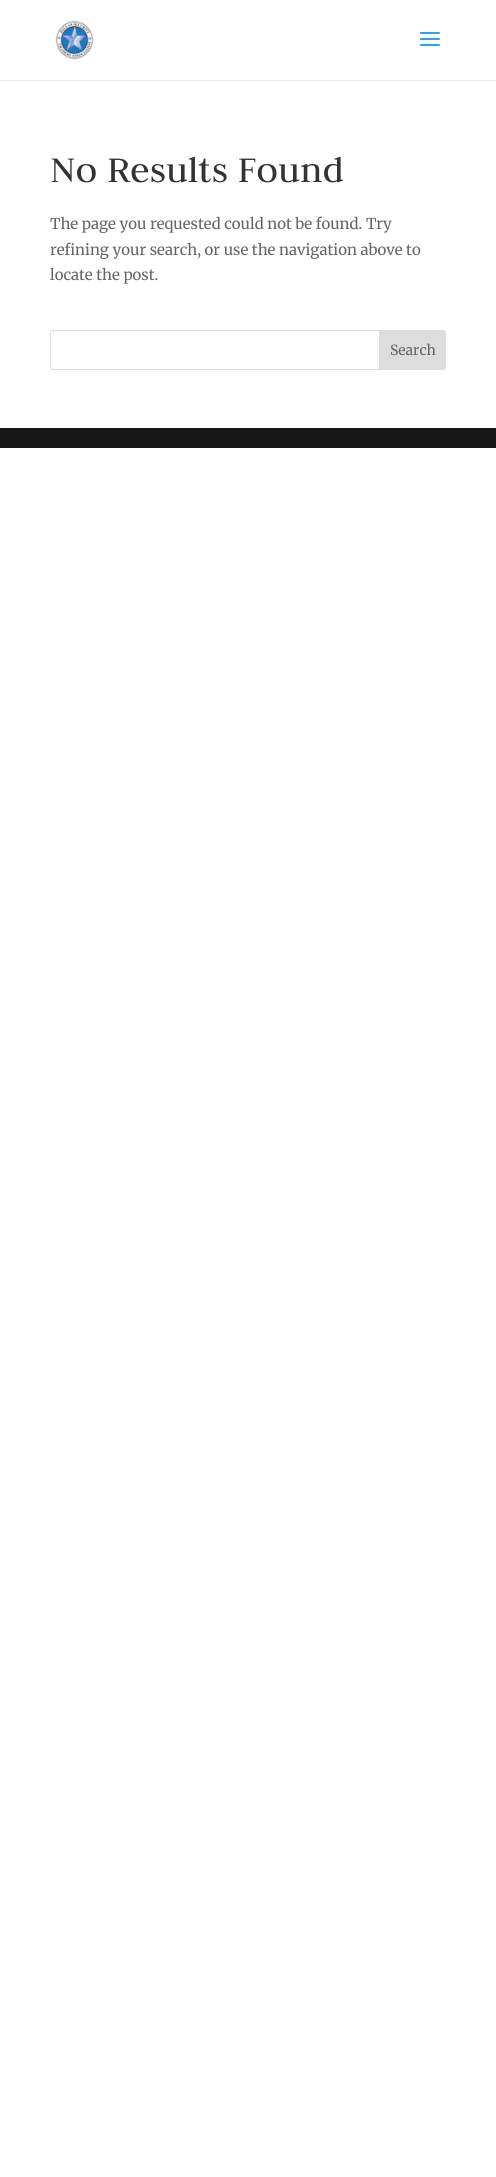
#include <cairo.h>
#include <math.h>
#include <stddef.h>

typedef struct { double x, y; const char *s; } line_t;

static void ink(cairo_t *ctx, unsigned color) {
    cairo_set_source_rgb(ctx, (color >> 16) / 255.0, (color >> 8 & 255) / 255.0, (color & 255) / 255.0);
}

static void round_path(cairo_t *ctx, double x, double y, double w, double h, double r) {
    cairo_new_sub_path(ctx);
    cairo_arc(ctx, x + w - r, y + h - r, r, 0, M_PI / 2);
    cairo_arc(ctx, x + r, y + h - r, r, M_PI / 2, M_PI);
    cairo_arc(ctx, x + r, y + r, r, M_PI, 1.5 * M_PI);
    cairo_arc(ctx, x + w - r, y + r, r, 1.5 * M_PI, 2 * M_PI);
    cairo_close_path(ctx);
}

static void paste(cairo_t *ctx, const char *path, double x, double y, double w, double h) {
    cairo_surface_t *image = cairo_image_surface_create_from_png(path);
    cairo_save(ctx);
    cairo_set_source_surface(ctx, image, x, y);
    cairo_rectangle(ctx, x, y, w, h);
    cairo_fill(ctx);
    cairo_restore(ctx);
    cairo_surface_destroy(image);
}

int main(void) {
    cairo_surface_t *surface = cairo_image_surface_create(CAIRO_FORMAT_RGB24, 496, 2177);
    cairo_t *ctx = cairo_create(surface);
    cairo_font_options_t *options = cairo_font_options_create();
    cairo_font_options_set_hint_metrics(options, CAIRO_HINT_METRICS_OFF);
    cairo_font_options_set_hint_style(options, CAIRO_HINT_STYLE_NONE);
    cairo_set_font_options(ctx, options);
    cairo_set_miter_limit(ctx, 4);
    ink(ctx, 0xFFFFFF);
    cairo_paint(ctx);
    ink(ctx, 0xE6E6E6);
    cairo_rectangle(ctx, 0, 80, 496, 1);
    cairo_fill(ctx);
    paste(ctx, "media/1.png", 55, 20, 39, 40);
    paste(ctx, "media/2.png", 420, 32, 20, 14);
    cairo_select_font_face(ctx, "Judson", CAIRO_FONT_SLANT_NORMAL, CAIRO_FONT_WEIGHT_NORMAL);
    cairo_set_font_size(ctx, 40);
    ink(ctx, 0x333333);
    cairo_move_to(ctx, 50, 182);
    cairo_show_text(ctx, "No Results Found");
    cairo_select_font_face(ctx, "Merriweather", CAIRO_FONT_SLANT_NORMAL, CAIRO_FONT_WEIGHT_NORMAL);
    cairo_set_font_size(ctx, 15);
    ink(ctx, 0x666666);
    {
        static const line_t items[] = {
            {50, 229, "The page you requested could not be found. Try"},
            {50, 255, "refining your search, or use the navigation above to"},
            {50, 280, "locate the post."},
        };
        for (size_t i = 0; i < sizeof items / sizeof *items; i++) {
            cairo_move_to(ctx, items[i].x, items[i].y);
            cairo_show_text(ctx, items[i].s);
        }
    }
    round_path(ctx, 50.5, 330.5, 395, 39, 2.5);
    ink(ctx, 0xDDDDDD);
    cairo_set_line_width(ctx, 1);
    cairo_stroke(ctx);
    cairo_new_path(ctx);
    cairo_move_to(ctx, 379.5, 330.5);
    cairo_line_to(ctx, 443, 330.5);
    cairo_curve_to(ctx, 444.5, 330.5, 445.5, 331.5, 445.5, 333);
    cairo_line_to(ctx, 445.5, 367);
    cairo_curve_to(ctx, 445.5, 368.5, 444.5, 369.5, 443, 369.5);
    cairo_line_to(ctx, 379.5, 369.5);
    cairo_close_path(ctx);
    cairo_fill_preserve(ctx);
    cairo_stroke(ctx);
    cairo_set_font_size(ctx, 14);
    ink(ctx, 0x666666);
    cairo_move_to(ctx, 390, 355);
    cairo_show_text(ctx, "Search");
    ink(ctx, 0x171717);
    cairo_rectangle(ctx, 0, 428, 496, 20);
    cairo_fill(ctx);
    cairo_surface_write_to_png(surface, "image.png");
    cairo_font_options_destroy(options);
    cairo_destroy(ctx);
    cairo_surface_destroy(surface);
    return 0;
}
